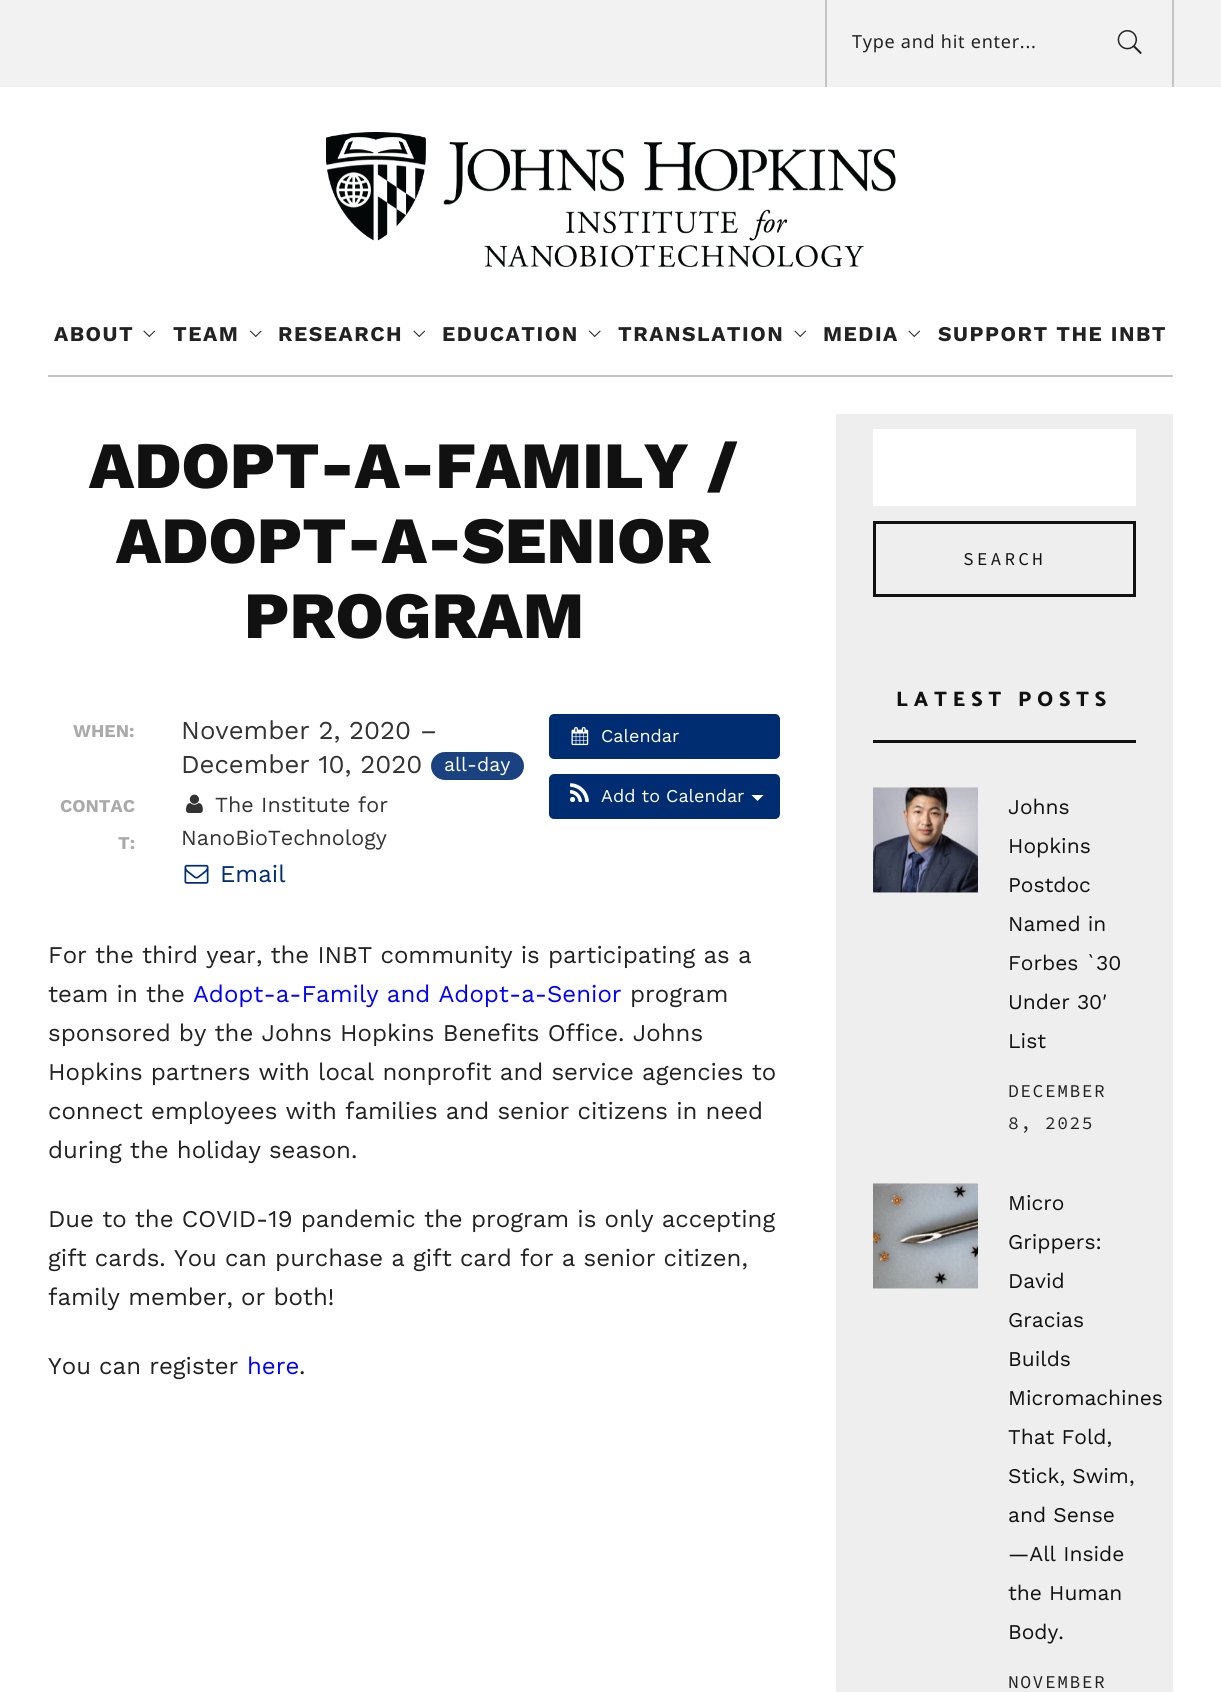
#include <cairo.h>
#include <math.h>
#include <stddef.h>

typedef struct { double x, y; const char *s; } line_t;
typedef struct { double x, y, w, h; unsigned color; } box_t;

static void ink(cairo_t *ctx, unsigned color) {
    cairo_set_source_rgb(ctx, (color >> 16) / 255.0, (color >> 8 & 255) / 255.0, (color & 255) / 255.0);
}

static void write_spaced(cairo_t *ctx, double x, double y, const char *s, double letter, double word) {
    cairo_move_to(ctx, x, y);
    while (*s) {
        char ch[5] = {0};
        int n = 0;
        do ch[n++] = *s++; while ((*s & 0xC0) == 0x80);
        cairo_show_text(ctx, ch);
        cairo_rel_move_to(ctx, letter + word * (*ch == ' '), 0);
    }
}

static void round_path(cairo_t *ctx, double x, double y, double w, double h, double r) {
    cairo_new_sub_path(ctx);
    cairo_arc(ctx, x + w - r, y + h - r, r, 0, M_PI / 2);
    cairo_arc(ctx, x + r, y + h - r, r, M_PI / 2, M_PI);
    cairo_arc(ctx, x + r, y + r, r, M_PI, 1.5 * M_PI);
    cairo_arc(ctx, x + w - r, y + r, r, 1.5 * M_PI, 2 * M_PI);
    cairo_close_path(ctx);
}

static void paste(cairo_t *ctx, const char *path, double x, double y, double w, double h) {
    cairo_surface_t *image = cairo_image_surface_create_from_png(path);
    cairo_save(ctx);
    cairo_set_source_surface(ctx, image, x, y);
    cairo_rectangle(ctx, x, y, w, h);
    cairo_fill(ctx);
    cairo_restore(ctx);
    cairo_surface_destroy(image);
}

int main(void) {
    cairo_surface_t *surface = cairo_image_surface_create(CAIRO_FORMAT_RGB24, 1221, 1692);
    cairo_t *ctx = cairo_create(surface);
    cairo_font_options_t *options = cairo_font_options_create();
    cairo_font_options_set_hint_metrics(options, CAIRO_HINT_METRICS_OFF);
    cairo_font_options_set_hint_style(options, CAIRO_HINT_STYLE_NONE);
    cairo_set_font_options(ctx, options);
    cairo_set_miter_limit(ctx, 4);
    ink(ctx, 0xFFFFFF);
    cairo_paint(ctx);
    {
        static const box_t items[] = {
            {0, 0, 1221, 87, 0xF2F2F2},
            {1172, 0, 2, 87, 0xC4C4C4},
            {825, 0, 2, 87, 0xC4C4C4},
        };
        for (size_t i = 0; i < sizeof items / sizeof *items; i++) {
            ink(ctx, items[i].color);
            cairo_rectangle(ctx, items[i].x, items[i].y, items[i].w, items[i].h);
            cairo_fill(ctx);
        }
    }
    cairo_select_font_face(ctx, "Noto Sans", CAIRO_FONT_SLANT_NORMAL, CAIRO_FONT_WEIGHT_NORMAL);
    cairo_set_font_size(ctx, 18);
    ink(ctx, 0x222222);
    write_spaced(ctx, 852, 48, "Type and hit enter...", 0.75, 0);
    paste(ctx, "media/1.png", 1117, 30, 25, 24);
    paste(ctx, "media/2.png", 326, 132, 570, 135);
    ink(ctx, 0xC4C4C4);
    cairo_rectangle(ctx, 48, 375, 1125, 2);
    cairo_fill(ctx);
    cairo_select_font_face(ctx, "Work Sans", CAIRO_FONT_SLANT_NORMAL, CAIRO_FONT_WEIGHT_BOLD);
    cairo_set_font_size(ctx, 21);
    ink(ctx, 0x222222);
    write_spaced(ctx, 54, 341, "ABOUT", 1.5, 0);
    paste(ctx, "media/3.png", 143, 330, 13, 8);
    write_spaced(ctx, 173, 341, "TEAM", 1.5, 0);
    paste(ctx, "media/4.png", 249, 330, 13, 8);
    write_spaced(ctx, 278, 341, "RESEARCH", 1.5, 0);
    paste(ctx, "media/3.png", 413, 330, 13, 8);
    write_spaced(ctx, 442, 341, "EDUCATION", 1.5, 0);
    paste(ctx, "media/4.png", 588, 330, 13, 8);
    write_spaced(ctx, 618, 341, "TRANSLATION", 1.5, 0);
    paste(ctx, "media/3.png", 794, 330, 13, 8);
    write_spaced(ctx, 823, 341, "MEDIA", 1.5, 0);
    paste(ctx, "media/3.png", 908, 330, 13, 8);
    write_spaced(ctx, 938, 341, "SUPPORT THE INBT", 1.5, 0);
    cairo_select_font_face(ctx, "Work Sans ExtraBold", CAIRO_FONT_SLANT_NORMAL, CAIRO_FONT_WEIGHT_NORMAL);
    cairo_set_font_size(ctx, 66);
    ink(ctx, 0x111111);
    {
        static const line_t items[] = {
            {89, 488, "ADOPT-A-FAMILY /"},
            {116, 563, "ADOPT-A-SENIOR"},
            {244, 638, "PROGRAM"},
        };
        for (size_t i = 0; i < sizeof items / sizeof *items; i++) {
            cairo_move_to(ctx, items[i].x, items[i].y);
            cairo_show_text(ctx, items[i].s);
        }
    }
    cairo_select_font_face(ctx, "Work Sans", CAIRO_FONT_SLANT_NORMAL, CAIRO_FONT_WEIGHT_BOLD);
    cairo_set_font_size(ctx, 18);
    ink(ctx, 0xAAAAAA);
    cairo_move_to(ctx, 73, 737);
    cairo_show_text(ctx, "WHEN:");
    cairo_select_font_face(ctx, "Work Sans", CAIRO_FONT_SLANT_NORMAL, CAIRO_FONT_WEIGHT_NORMAL);
    cairo_set_font_size(ctx, 25.75);
    ink(ctx, 0x333333);
    cairo_move_to(ctx, 181, 739);
    cairo_show_text(ctx, "November 2, 2020 –");
    cairo_move_to(ctx, 181, 773);
    cairo_show_text(ctx, "December 10, 2020");
    ink(ctx, 0x1A4280);
    round_path(ctx, 431, 752, 93, 28, 14);
    cairo_fill(ctx);
    cairo_set_font_size(ctx, 19.5);
    ink(ctx, 0xFFFFFF);
    cairo_move_to(ctx, 444, 771);
    cairo_show_text(ctx, "all-day");
    cairo_select_font_face(ctx, "Work Sans", CAIRO_FONT_SLANT_NORMAL, CAIRO_FONT_WEIGHT_BOLD);
    cairo_set_font_size(ctx, 18);
    ink(ctx, 0xAAAAAA);
    cairo_move_to(ctx, 60, 812);
    cairo_show_text(ctx, "CONTAC");
    cairo_move_to(ctx, 118, 849);
    cairo_show_text(ctx, "T:");
    paste(ctx, "media/5.png", 186, 794, 17, 19);
    cairo_select_font_face(ctx, "Work Sans", CAIRO_FONT_SLANT_NORMAL, CAIRO_FONT_WEIGHT_NORMAL);
    cairo_set_font_size(ctx, 21.5);
    ink(ctx, 0x333333);
    cairo_move_to(ctx, 215, 812);
    cairo_show_text(ctx, "The Institute for");
    cairo_move_to(ctx, 181, 845);
    cairo_show_text(ctx, "NanoBioTechnology");
    paste(ctx, "media/6.png", 184, 864, 25, 20);
    cairo_set_font_size(ctx, 24);
    ink(ctx, 0x002D72);
    cairo_move_to(ctx, 220, 882);
    cairo_show_text(ctx, "Email");
    round_path(ctx, 550, 715, 229, 43, 4);
    cairo_fill_preserve(ctx);
    cairo_stroke(ctx);
    paste(ctx, "media/7.png", 571, 727, 18, 19);
    cairo_set_font_size(ctx, 18);
    ink(ctx, 0xFFFFFF);
    cairo_move_to(ctx, 601, 742);
    cairo_show_text(ctx, "Calendar");
    ink(ctx, 0x002D72);
    round_path(ctx, 550, 775, 229, 43, 4);
    cairo_fill_preserve(ctx);
    cairo_stroke(ctx);
    paste(ctx, "media/8.png", 570, 783, 19, 20);
    ink(ctx, 0xFFFFFF);
    cairo_move_to(ctx, 601, 802);
    cairo_show_text(ctx, "Add to Calendar");
    cairo_new_path(ctx);
    cairo_move_to(ctx, 751.5, 795);
    cairo_line_to(ctx, 763.5, 795);
    cairo_line_to(ctx, 757.5, 801);
    cairo_close_path(ctx);
    cairo_fill(ctx);
    cairo_set_font_size(ctx, 24);
    ink(ctx, 0x222222);
    cairo_move_to(ctx, 48, 963);
    cairo_show_text(ctx, "For the third year, the INBT community is participating as a");
    cairo_move_to(ctx, 48, 1002);
    cairo_show_text(ctx, "team in the");
    ink(ctx, 0x0000FF);
    cairo_move_to(ctx, 193, 1002);
    cairo_show_text(ctx, "Adopt-a-Family and Adopt-a-Senior");
    ink(ctx, 0x222222);
    {
        static const line_t items[] = {
            {630, 1002, "program"},
            {48, 1041, "sponsored by the Johns Hopkins Benefits Office. Johns"},
            {48, 1080, "Hopkins partners with local nonprofit and service agencies to"},
            {48, 1119, "connect employees with families and senior citizens in need"},
            {48, 1158, "during the holiday season."},
            {48, 1227, "Due to the COVID-19 pandemic the program is only accepting"},
            {48, 1266, "gift cards. You can purchase a gift card for a senior citizen,"},
            {48, 1305, "family member, or both!"},
            {48, 1374, "You can register"},
        };
        for (size_t i = 0; i < sizeof items / sizeof *items; i++) {
            cairo_move_to(ctx, items[i].x, items[i].y);
            cairo_show_text(ctx, items[i].s);
        }
    }
    ink(ctx, 0x0000FF);
    cairo_move_to(ctx, 247, 1374);
    cairo_show_text(ctx, "here");
    ink(ctx, 0x222222);
    cairo_move_to(ctx, 299, 1374);
    cairo_show_text(ctx, ".");
    ink(ctx, 0xEEEEEE);
    cairo_rectangle(ctx, 836, 414, 337, 1278);
    cairo_fill(ctx);
    ink(ctx, 0xFFFFFF);
    cairo_rectangle(ctx, 873, 429, 263, 77);
    cairo_fill(ctx);
    cairo_rectangle(ctx, 874.5, 522.5, 260, 73);
    ink(ctx, 0x111111);
    cairo_set_line_width(ctx, 3);
    cairo_stroke(ctx);
    cairo_select_font_face(ctx, "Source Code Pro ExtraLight", CAIRO_FONT_SLANT_NORMAL, CAIRO_FONT_WEIGHT_NORMAL);
    cairo_set_font_size(ctx, 18);
    write_spaced(ctx, 963, 565, "SEARCH", 3, 0);
    cairo_rectangle(ctx, 873, 740, 263, 3);
    cairo_fill(ctx);
    cairo_select_font_face(ctx, "Catamaran ExtraBold", CAIRO_FONT_SLANT_NORMAL, CAIRO_FONT_WEIGHT_NORMAL);
    cairo_set_font_size(ctx, 21);
    write_spaced(ctx, 896, 706, "LATEST POSTS", 6, 0);
    paste(ctx, "media/9.png", 873, 787, 105, 106);
    cairo_select_font_face(ctx, "Work Sans", CAIRO_FONT_SLANT_NORMAL, CAIRO_FONT_WEIGHT_NORMAL);
    {
        static const line_t items[] = {
            {1008, 814, "Johns"},
            {1008, 853, "Hopkins"},
            {1008, 892, "Postdoc"},
            {1008, 931, "Named in"},
            {1008, 970, "Forbes `30"},
            {1008, 1009, "Under 30′"},
            {1008, 1048, "List"},
        };
        for (size_t i = 0; i < sizeof items / sizeof *items; i++) {
            cairo_move_to(ctx, items[i].x, items[i].y);
            cairo_show_text(ctx, items[i].s);
        }
    }
    cairo_select_font_face(ctx, "Source Code Pro ExtraLight", CAIRO_FONT_SLANT_NORMAL, CAIRO_FONT_WEIGHT_NORMAL);
    cairo_set_font_size(ctx, 18);
    ink(ctx, 0x222222);
    write_spaced(ctx, 1008, 1097, "DECEMBER", 1.5, 0);
    write_spaced(ctx, 1008, 1129, "8, 2025", 1.5, 0);
    paste(ctx, "media/10.png", 873, 1183, 105, 106);
    cairo_select_font_face(ctx, "Work Sans", CAIRO_FONT_SLANT_NORMAL, CAIRO_FONT_WEIGHT_NORMAL);
    cairo_set_font_size(ctx, 21);
    ink(ctx, 0x111111);
    {
        static const line_t items[] = {
            {1008, 1210, "Micro"},
            {1008, 1249, "Grippers:"},
            {1008, 1288, "David"},
            {1008, 1327, "Gracias"},
            {1008, 1366, "Builds"},
            {1008, 1405, "Micromachines"},
            {1008, 1444, "That Fold,"},
            {1008, 1483, "Stick, Swim,"},
            {1008, 1522, "and Sense"},
            {1008, 1561, "—All Inside"},
            {1008, 1600, "the Human"},
            {1008, 1639, "Body."},
        };
        for (size_t i = 0; i < sizeof items / sizeof *items; i++) {
            cairo_move_to(ctx, items[i].x, items[i].y);
            cairo_show_text(ctx, items[i].s);
        }
    }
    cairo_select_font_face(ctx, "Source Code Pro ExtraLight", CAIRO_FONT_SLANT_NORMAL, CAIRO_FONT_WEIGHT_NORMAL);
    cairo_set_font_size(ctx, 18);
    ink(ctx, 0x222222);
    write_spaced(ctx, 1008, 1688, "NOVEMBER", 1.5, 0);
    cairo_surface_write_to_png(surface, "image.png");
    cairo_font_options_destroy(options);
    cairo_destroy(ctx);
    cairo_surface_destroy(surface);
    return 0;
}
